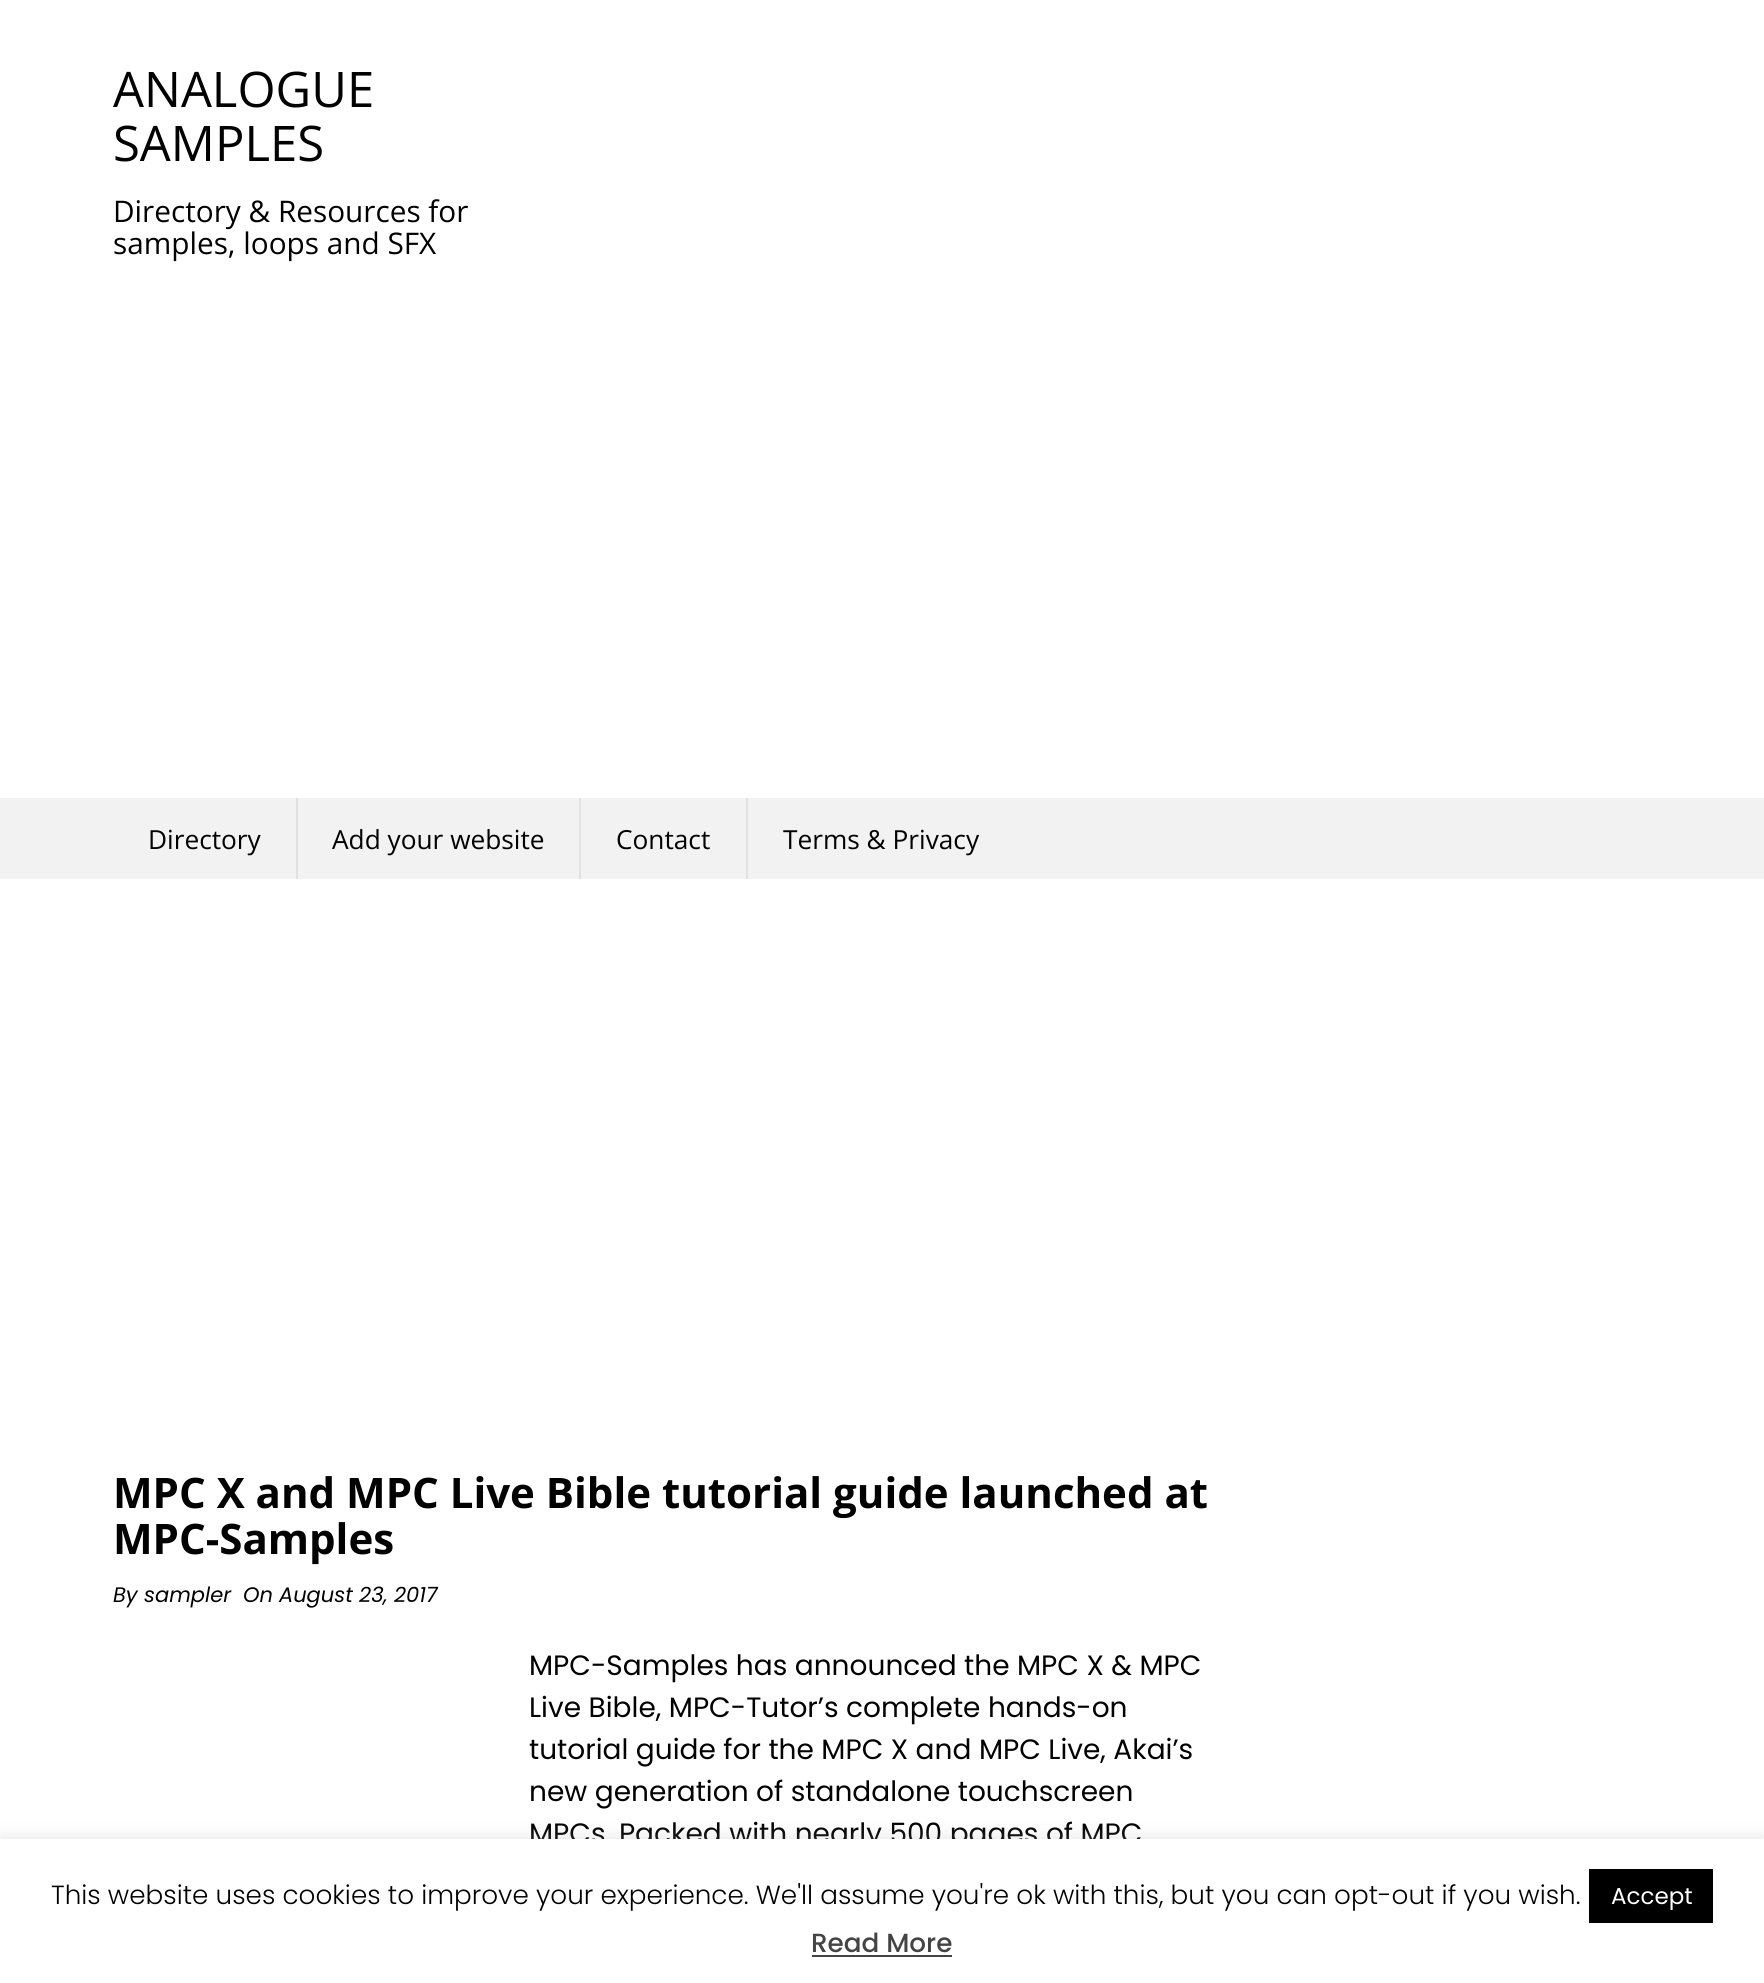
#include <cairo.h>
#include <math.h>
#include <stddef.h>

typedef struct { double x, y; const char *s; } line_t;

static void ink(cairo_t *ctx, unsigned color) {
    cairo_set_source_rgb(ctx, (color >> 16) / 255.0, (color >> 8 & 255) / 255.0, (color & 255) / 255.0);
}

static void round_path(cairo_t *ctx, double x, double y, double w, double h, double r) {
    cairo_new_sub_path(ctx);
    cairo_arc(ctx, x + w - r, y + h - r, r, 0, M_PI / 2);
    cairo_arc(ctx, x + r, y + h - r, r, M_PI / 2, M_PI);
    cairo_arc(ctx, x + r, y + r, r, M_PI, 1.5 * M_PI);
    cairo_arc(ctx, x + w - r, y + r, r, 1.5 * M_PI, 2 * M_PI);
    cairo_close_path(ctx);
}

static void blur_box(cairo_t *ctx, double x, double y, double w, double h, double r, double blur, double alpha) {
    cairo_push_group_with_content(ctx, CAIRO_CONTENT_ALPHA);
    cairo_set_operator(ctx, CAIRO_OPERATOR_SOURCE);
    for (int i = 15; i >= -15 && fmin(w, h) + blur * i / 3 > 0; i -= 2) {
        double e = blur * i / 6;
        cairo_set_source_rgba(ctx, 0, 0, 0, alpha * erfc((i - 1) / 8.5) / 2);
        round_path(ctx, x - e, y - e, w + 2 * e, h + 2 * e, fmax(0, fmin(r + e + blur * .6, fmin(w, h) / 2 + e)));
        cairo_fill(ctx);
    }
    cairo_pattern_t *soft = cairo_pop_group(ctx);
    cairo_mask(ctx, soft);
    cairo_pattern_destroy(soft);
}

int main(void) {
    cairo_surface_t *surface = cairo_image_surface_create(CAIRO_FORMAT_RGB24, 1764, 1983);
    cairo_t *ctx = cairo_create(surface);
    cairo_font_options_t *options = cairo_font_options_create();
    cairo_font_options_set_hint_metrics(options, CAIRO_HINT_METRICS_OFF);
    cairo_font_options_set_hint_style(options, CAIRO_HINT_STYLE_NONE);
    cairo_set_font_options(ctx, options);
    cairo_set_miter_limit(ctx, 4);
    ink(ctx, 0xFFFFFF);
    cairo_paint(ctx);
    cairo_select_font_face(ctx, "Open Sans", CAIRO_FONT_SLANT_NORMAL, CAIRO_FONT_WEIGHT_NORMAL);
    cairo_set_font_size(ctx, 49);
    ink(ctx, 0x010101);
    cairo_move_to(ctx, 113, 107);
    cairo_show_text(ctx, "ANALOGUE");
    cairo_move_to(ctx, 113, 161);
    cairo_show_text(ctx, "SAMPLES");
    cairo_set_font_size(ctx, 29.75);
    cairo_move_to(ctx, 113, 222);
    cairo_show_text(ctx, "Directory & Resources for");
    cairo_move_to(ctx, 113, 254);
    cairo_show_text(ctx, "samples, loops and SFX");
    ink(ctx, 0xF3F2F2);
    cairo_rectangle(ctx, 0, 798, 1764, 81);
    cairo_fill(ctx);
    cairo_set_font_size(ctx, 26.25);
    ink(ctx, 0x010101);
    cairo_move_to(ctx, 148, 849);
    cairo_show_text(ctx, "Directory");
    ink(ctx, 0xE2E0E0);
    cairo_rectangle(ctx, 296, 798, 2, 81);
    cairo_fill(ctx);
    ink(ctx, 0x010101);
    cairo_move_to(ctx, 332, 849);
    cairo_show_text(ctx, "Add your website");
    ink(ctx, 0xE2E0E0);
    cairo_rectangle(ctx, 579, 798, 2, 81);
    cairo_fill(ctx);
    ink(ctx, 0x010101);
    cairo_move_to(ctx, 616, 849);
    cairo_show_text(ctx, "Contact");
    ink(ctx, 0xE2E0E0);
    cairo_rectangle(ctx, 746, 798, 2, 81);
    cairo_fill(ctx);
    ink(ctx, 0x010101);
    cairo_move_to(ctx, 783, 849);
    cairo_show_text(ctx, "Terms & Privacy");
    cairo_select_font_face(ctx, "Open Sans", CAIRO_FONT_SLANT_NORMAL, CAIRO_FONT_WEIGHT_BOLD);
    cairo_set_font_size(ctx, 42);
    cairo_move_to(ctx, 113, 1508);
    cairo_show_text(ctx, "MPC X and MPC Live Bible tutorial guide launched at");
    cairo_move_to(ctx, 113, 1554);
    cairo_show_text(ctx, "MPC-Samples");
    cairo_select_font_face(ctx, "Poppins", CAIRO_FONT_SLANT_ITALIC, CAIRO_FONT_WEIGHT_NORMAL);
    cairo_set_font_size(ctx, 21);
    {
        static const line_t items[] = {
            {113, 1602, "By"},
            {144, 1602, "sampler"},
            {243, 1602, "On"},
            {279, 1602, "August 23, 2017"},
        };
        for (size_t i = 0; i < sizeof items / sizeof *items; i++) {
            cairo_move_to(ctx, items[i].x, items[i].y);
            cairo_show_text(ctx, items[i].s);
        }
    }
    cairo_select_font_face(ctx, "Poppins", CAIRO_FONT_SLANT_NORMAL, CAIRO_FONT_WEIGHT_NORMAL);
    cairo_set_font_size(ctx, 28);
    {
        static const line_t items[] = {
            {529, 1675, "MPC-Samples has announced the MPC X & MPC"},
            {529, 1717, "Live Bible, MPC-Tutor’s complete hands-on"},
            {529, 1759, "tutorial guide for the MPC X and MPC Live, Akai’s"},
            {529, 1801, "new generation of standalone touchscreen"},
            {529, 1843, "MPCs. Packed with nearly 500 pages of MPC"},
        };
        for (size_t i = 0; i < sizeof items / sizeof *items; i++) {
            cairo_move_to(ctx, items[i].x, items[i].y);
            cairo_show_text(ctx, items[i].s);
        }
    }
    ink(ctx, 0xACABAB);
    blur_box(ctx, 0, 1838, 1764, 145, 0, 9, 0.3);
    ink(ctx, 0xFFFFFF);
    cairo_rectangle(ctx, 0, 1839, 1764, 144);
    cairo_fill(ctx);
    cairo_select_font_face(ctx, "Poppins Light", CAIRO_FONT_SLANT_NORMAL, CAIRO_FONT_WEIGHT_NORMAL);
    cairo_set_font_size(ctx, 26.25);
    ink(ctx, 0x010101);
    cairo_move_to(ctx, 51, 1904);
    cairo_show_text(ctx, "This website uses cookies to improve your experience. We'll assume you're ok with this, but you can opt-out if you wish.");
    ink(ctx, 0x000000);
    cairo_rectangle(ctx, 1589, 1869, 124, 54);
    cairo_fill(ctx);
    cairo_select_font_face(ctx, "Poppins", CAIRO_FONT_SLANT_NORMAL, CAIRO_FONT_WEIGHT_NORMAL);
    cairo_set_font_size(ctx, 23);
    ink(ctx, 0xFFFFFF);
    cairo_move_to(ctx, 1611, 1904);
    cairo_show_text(ctx, "Accept");
    cairo_select_font_face(ctx, "Poppins Medium", CAIRO_FONT_SLANT_NORMAL, CAIRO_FONT_WEIGHT_NORMAL);
    cairo_set_font_size(ctx, 26.25);
    ink(ctx, 0x444444);
    cairo_move_to(ctx, 811, 1952);
    cairo_show_text(ctx, "Read More");
    cairo_rectangle(ctx, 812, 1955, 140, 2);
    cairo_fill(ctx);
    cairo_surface_write_to_png(surface, "image.png");
    cairo_font_options_destroy(options);
    cairo_destroy(ctx);
    cairo_surface_destroy(surface);
    return 0;
}
